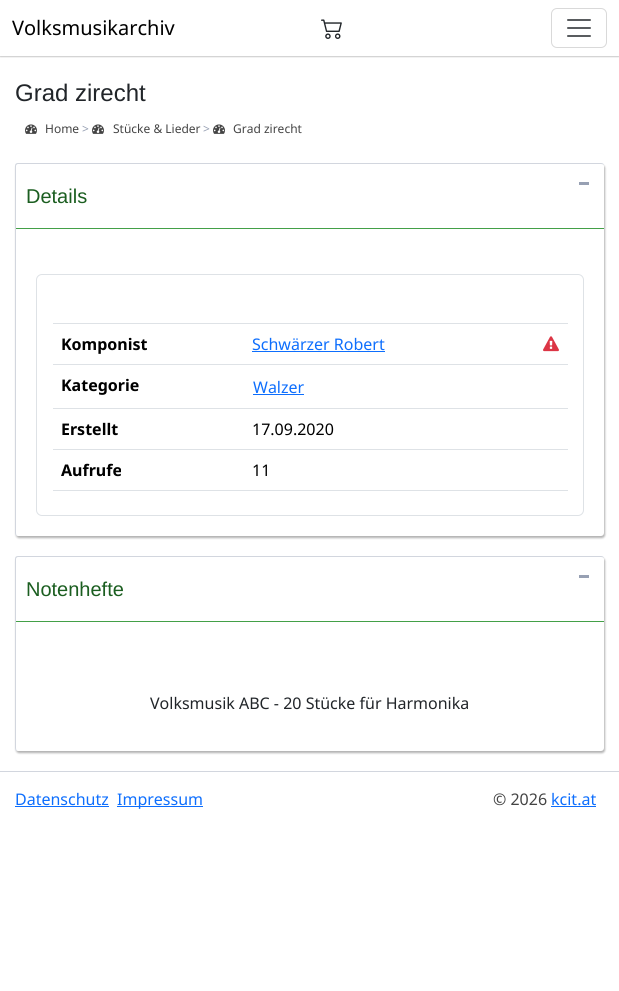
#include <cairo.h>
#include <math.h>
#include <stddef.h>


static void ink(cairo_t *ctx, unsigned color) {
    cairo_set_source_rgb(ctx, (color >> 16) / 255.0, (color >> 8 & 255) / 255.0, (color & 255) / 255.0);
}

static void round_path(cairo_t *ctx, double x, double y, double w, double h, double r) {
    cairo_new_sub_path(ctx);
    cairo_arc(ctx, x + w - r, y + h - r, r, 0, M_PI / 2);
    cairo_arc(ctx, x + r, y + h - r, r, M_PI / 2, M_PI);
    cairo_arc(ctx, x + r, y + r, r, M_PI, 1.5 * M_PI);
    cairo_arc(ctx, x + w - r, y + r, r, 1.5 * M_PI, 2 * M_PI);
    cairo_close_path(ctx);
}

static void blur_box(cairo_t *ctx, double x, double y, double w, double h, double r, double blur, double alpha) {
    cairo_push_group_with_content(ctx, CAIRO_CONTENT_ALPHA);
    cairo_set_operator(ctx, CAIRO_OPERATOR_SOURCE);
    for (int i = 15; i >= -15 && fmin(w, h) + blur * i / 3 > 0; i -= 2) {
        double e = blur * i / 6;
        cairo_set_source_rgba(ctx, 0, 0, 0, alpha * erfc((i - 1) / 8.5) / 2);
        round_path(ctx, x - e, y - e, w + 2 * e, h + 2 * e, fmax(0, fmin(r + e + blur * .6, fmin(w, h) / 2 + e)));
        cairo_fill(ctx);
    }
    cairo_pattern_t *soft = cairo_pop_group(ctx);
    cairo_mask(ctx, soft);
    cairo_pattern_destroy(soft);
}

static void paste(cairo_t *ctx, const char *path, double x, double y, double w, double h) {
    cairo_surface_t *image = cairo_image_surface_create_from_png(path);
    cairo_save(ctx);
    cairo_set_source_surface(ctx, image, x, y);
    cairo_rectangle(ctx, x, y, w, h);
    cairo_fill(ctx);
    cairo_restore(ctx);
    cairo_surface_destroy(image);
}

int main(void) {
    cairo_surface_t *surface = cairo_image_surface_create(CAIRO_FORMAT_RGB24, 619, 991);
    cairo_t *ctx = cairo_create(surface);
    cairo_font_options_t *options = cairo_font_options_create();
    cairo_font_options_set_hint_metrics(options, CAIRO_HINT_METRICS_OFF);
    cairo_font_options_set_hint_style(options, CAIRO_HINT_STYLE_NONE);
    cairo_set_font_options(ctx, options);
    cairo_set_miter_limit(ctx, 4);
    ink(ctx, 0xFFFFFF);
    cairo_paint(ctx);
    cairo_save(ctx);
    cairo_rectangle(ctx, 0, 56, 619, 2);
    cairo_clip(ctx);
    ink(ctx, 0x000000);
    blur_box(ctx, 0, 1, 619, 56, 0, 0.5, 0.2);
    cairo_restore(ctx);
    cairo_select_font_face(ctx, "Noto Sans", CAIRO_FONT_SLANT_NORMAL, CAIRO_FONT_WEIGHT_NORMAL);
    cairo_set_font_size(ctx, 20);
    ink(ctx, 0x000000);
    cairo_move_to(ctx, 12, 35);
    cairo_show_text(ctx, "Volksmusikarchiv");
    paste(ctx, "media/1.png", 321, 19, 21, 20);
    round_path(ctx, 551.5, 8.5, 55, 39, 5.5);
    ink(ctx, 0xD9D9D9);
    cairo_set_line_width(ctx, 1);
    cairo_stroke(ctx);
    paste(ctx, "media/2.png", 567, 19, 24, 18);
    cairo_select_font_face(ctx, "Liberation Sans", CAIRO_FONT_SLANT_NORMAL, CAIRO_FONT_WEIGHT_NORMAL);
    cairo_set_font_size(ctx, 24);
    ink(ctx, 0x212529);
    cairo_move_to(ctx, 15, 101);
    cairo_show_text(ctx, "Grad zirecht");
    paste(ctx, "media/3.png", 25, 124, 12, 10);
    cairo_select_font_face(ctx, "Noto Sans", CAIRO_FONT_SLANT_NORMAL, CAIRO_FONT_WEIGHT_NORMAL);
    cairo_set_font_size(ctx, 12);
    ink(ctx, 0x444444);
    cairo_move_to(ctx, 45, 133);
    cairo_show_text(ctx, "Home");
    ink(ctx, 0x97A0B3);
    cairo_move_to(ctx, 82, 133);
    cairo_show_text(ctx, ">");
    paste(ctx, "media/3.png", 92, 124, 12, 10);
    ink(ctx, 0x444444);
    cairo_move_to(ctx, 113, 133);
    cairo_show_text(ctx, "Stücke & Lieder");
    ink(ctx, 0x97A0B3);
    cairo_move_to(ctx, 203, 133);
    cairo_show_text(ctx, ">");
    paste(ctx, "media/3.png", 213, 124, 12, 10);
    ink(ctx, 0x444444);
    cairo_move_to(ctx, 233, 133);
    cairo_show_text(ctx, "Grad zirecht");
    ink(ctx, 0x000000);
    blur_box(ctx, 16, 165, 589, 373, 3, 1, 0.3);
    ink(ctx, 0xFFFFFF);
    round_path(ctx, 15, 163, 589, 373, 3);
    cairo_fill(ctx);
    ink(ctx, 0xD2D6DE);
    cairo_set_fill_rule(ctx, CAIRO_FILL_RULE_EVEN_ODD);
    cairo_new_path(ctx);
    cairo_move_to(ctx, 18, 163);
    cairo_line_to(ctx, 601, 163);
    cairo_curve_to(ctx, 603, 163, 604, 164, 604, 166);
    cairo_line_to(ctx, 604, 533);
    cairo_curve_to(ctx, 604, 535, 603, 536, 601, 536);
    cairo_line_to(ctx, 18, 536);
    cairo_curve_to(ctx, 16, 536, 15, 535, 15, 533);
    cairo_line_to(ctx, 15, 166);
    cairo_curve_to(ctx, 15, 164, 16, 163, 18, 163);
    cairo_close_path(ctx);
    cairo_move_to(ctx, 18, 164);
    cairo_line_to(ctx, 601, 164);
    cairo_curve_to(ctx, 603, 164, 604, 165, 604, 166);
    cairo_line_to(ctx, 604, 533);
    cairo_curve_to(ctx, 604, 535, 603, 536, 601, 536);
    cairo_line_to(ctx, 18, 536);
    cairo_curve_to(ctx, 17, 536, 16, 535, 16, 533);
    cairo_line_to(ctx, 16, 166);
    cairo_curve_to(ctx, 16, 165, 17, 164, 18, 164);
    cairo_close_path(ctx);
    cairo_fill(ctx);
    ink(ctx, 0x43A047);
    cairo_rectangle(ctx, 16, 228, 588, 1);
    cairo_fill(ctx);
    ink(ctx, 0x97A0B3);
    cairo_rectangle(ctx, 579, 182, 10, 3);
    cairo_fill(ctx);
    cairo_select_font_face(ctx, "Liberation Sans", CAIRO_FONT_SLANT_NORMAL, CAIRO_FONT_WEIGHT_NORMAL);
    cairo_set_font_size(ctx, 20);
    ink(ctx, 0x1B5E20);
    cairo_move_to(ctx, 26, 203);
    cairo_show_text(ctx, "Details");
    round_path(ctx, 36.5, 274.5, 547, 241, 5.5);
    ink(ctx, 0xDEE2E6);
    cairo_stroke(ctx);
    cairo_rectangle(ctx, 53, 323, 515, 1);
    cairo_fill(ctx);
    cairo_select_font_face(ctx, "Noto Sans", CAIRO_FONT_SLANT_NORMAL, CAIRO_FONT_WEIGHT_BOLD);
    cairo_set_font_size(ctx, 16);
    ink(ctx, 0x000000);
    cairo_move_to(ctx, 61, 350);
    cairo_show_text(ctx, "Komponist");
    ink(ctx, 0xDEE2E6);
    cairo_rectangle(ctx, 53, 364, 515, 1);
    cairo_fill(ctx);
    cairo_select_font_face(ctx, "Noto Sans", CAIRO_FONT_SLANT_NORMAL, CAIRO_FONT_WEIGHT_NORMAL);
    ink(ctx, 0x0D6EFD);
    cairo_move_to(ctx, 252, 350);
    cairo_show_text(ctx, "Schwärzer Robert");
    cairo_rectangle(ctx, 252, 351, 133, 1);
    cairo_fill(ctx);
    paste(ctx, "media/4.png", 543, 336, 16, 16);
    cairo_select_font_face(ctx, "Noto Sans", CAIRO_FONT_SLANT_NORMAL, CAIRO_FONT_WEIGHT_BOLD);
    ink(ctx, 0x000000);
    cairo_move_to(ctx, 61, 391);
    cairo_show_text(ctx, "Kategorie");
    ink(ctx, 0xDEE2E6);
    cairo_rectangle(ctx, 53, 408, 515, 1);
    cairo_fill(ctx);
    cairo_select_font_face(ctx, "Noto Sans", CAIRO_FONT_SLANT_NORMAL, CAIRO_FONT_WEIGHT_NORMAL);
    ink(ctx, 0x0D6EFD);
    cairo_move_to(ctx, 253, 393);
    cairo_show_text(ctx, "Walzer");
    cairo_rectangle(ctx, 253, 394, 51, 1);
    cairo_fill(ctx);
    cairo_select_font_face(ctx, "Noto Sans", CAIRO_FONT_SLANT_NORMAL, CAIRO_FONT_WEIGHT_BOLD);
    ink(ctx, 0x000000);
    cairo_move_to(ctx, 61, 435);
    cairo_show_text(ctx, "Erstellt");
    ink(ctx, 0xDEE2E6);
    cairo_rectangle(ctx, 53, 449, 515, 1);
    cairo_fill(ctx);
    cairo_select_font_face(ctx, "Noto Sans", CAIRO_FONT_SLANT_NORMAL, CAIRO_FONT_WEIGHT_NORMAL);
    ink(ctx, 0x000000);
    cairo_move_to(ctx, 252, 435);
    cairo_show_text(ctx, "17.09.2020");
    cairo_select_font_face(ctx, "Noto Sans", CAIRO_FONT_SLANT_NORMAL, CAIRO_FONT_WEIGHT_BOLD);
    cairo_move_to(ctx, 61, 476);
    cairo_show_text(ctx, "Aufrufe");
    ink(ctx, 0xDEE2E6);
    cairo_rectangle(ctx, 53, 490, 515, 1);
    cairo_fill(ctx);
    cairo_select_font_face(ctx, "Noto Sans", CAIRO_FONT_SLANT_NORMAL, CAIRO_FONT_WEIGHT_NORMAL);
    ink(ctx, 0x000000);
    cairo_move_to(ctx, 252, 476);
    cairo_show_text(ctx, "11");
    ink(ctx, 0x000000);
    blur_box(ctx, 16, 558, 589, 195, 3, 1, 0.3);
    ink(ctx, 0xFFFFFF);
    round_path(ctx, 15, 556, 589, 195, 3);
    cairo_fill(ctx);
    ink(ctx, 0xD2D6DE);
    cairo_new_path(ctx);
    cairo_move_to(ctx, 18, 556);
    cairo_line_to(ctx, 601, 556);
    cairo_curve_to(ctx, 603, 556, 604, 557, 604, 559);
    cairo_line_to(ctx, 604, 748);
    cairo_curve_to(ctx, 604, 750, 603, 751, 601, 751);
    cairo_line_to(ctx, 18, 751);
    cairo_curve_to(ctx, 16, 751, 15, 750, 15, 748);
    cairo_line_to(ctx, 15, 559);
    cairo_curve_to(ctx, 15, 557, 16, 556, 18, 556);
    cairo_close_path(ctx);
    cairo_move_to(ctx, 18, 557);
    cairo_line_to(ctx, 601, 557);
    cairo_curve_to(ctx, 603, 557, 604, 558, 604, 559);
    cairo_line_to(ctx, 604, 748);
    cairo_curve_to(ctx, 604, 750, 603, 751, 601, 751);
    cairo_line_to(ctx, 18, 751);
    cairo_curve_to(ctx, 17, 751, 16, 750, 16, 748);
    cairo_line_to(ctx, 16, 559);
    cairo_curve_to(ctx, 16, 558, 17, 557, 18, 557);
    cairo_close_path(ctx);
    cairo_fill(ctx);
    ink(ctx, 0x43A047);
    cairo_rectangle(ctx, 16, 621, 588, 1);
    cairo_fill(ctx);
    ink(ctx, 0x97A0B3);
    cairo_rectangle(ctx, 579, 575, 10, 3);
    cairo_fill(ctx);
    cairo_select_font_face(ctx, "Liberation Sans", CAIRO_FONT_SLANT_NORMAL, CAIRO_FONT_WEIGHT_NORMAL);
    cairo_set_font_size(ctx, 20);
    ink(ctx, 0x1B5E20);
    cairo_move_to(ctx, 26, 596);
    cairo_show_text(ctx, "Notenhefte");
    cairo_select_font_face(ctx, "Noto Sans", CAIRO_FONT_SLANT_NORMAL, CAIRO_FONT_WEIGHT_NORMAL);
    cairo_set_font_size(ctx, 16);
    ink(ctx, 0x212529);
    cairo_move_to(ctx, 150, 709);
    cairo_show_text(ctx, "Volksmusik ABC - 20 Stücke für Harmonika");
    ink(ctx, 0xD2D6DE);
    cairo_rectangle(ctx, 0, 771, 619, 1);
    cairo_fill(ctx);
    ink(ctx, 0x0D6EFD);
    cairo_move_to(ctx, 15, 805);
    cairo_show_text(ctx, "Datenschutz");
    cairo_rectangle(ctx, 15, 806, 94, 1);
    cairo_fill(ctx);
    cairo_rectangle(ctx, 117, 806, 86, 1);
    cairo_fill(ctx);
    cairo_move_to(ctx, 117, 805);
    cairo_show_text(ctx, "Impressum");
    ink(ctx, 0x444444);
    cairo_move_to(ctx, 493, 805);
    cairo_show_text(ctx, "© 2026");
    ink(ctx, 0x0D6EFD);
    cairo_move_to(ctx, 551, 805);
    cairo_show_text(ctx, "kcit.at");
    cairo_rectangle(ctx, 551, 806, 45, 1);
    cairo_fill(ctx);
    cairo_surface_write_to_png(surface, "image.png");
    cairo_font_options_destroy(options);
    cairo_destroy(ctx);
    cairo_surface_destroy(surface);
    return 0;
}
